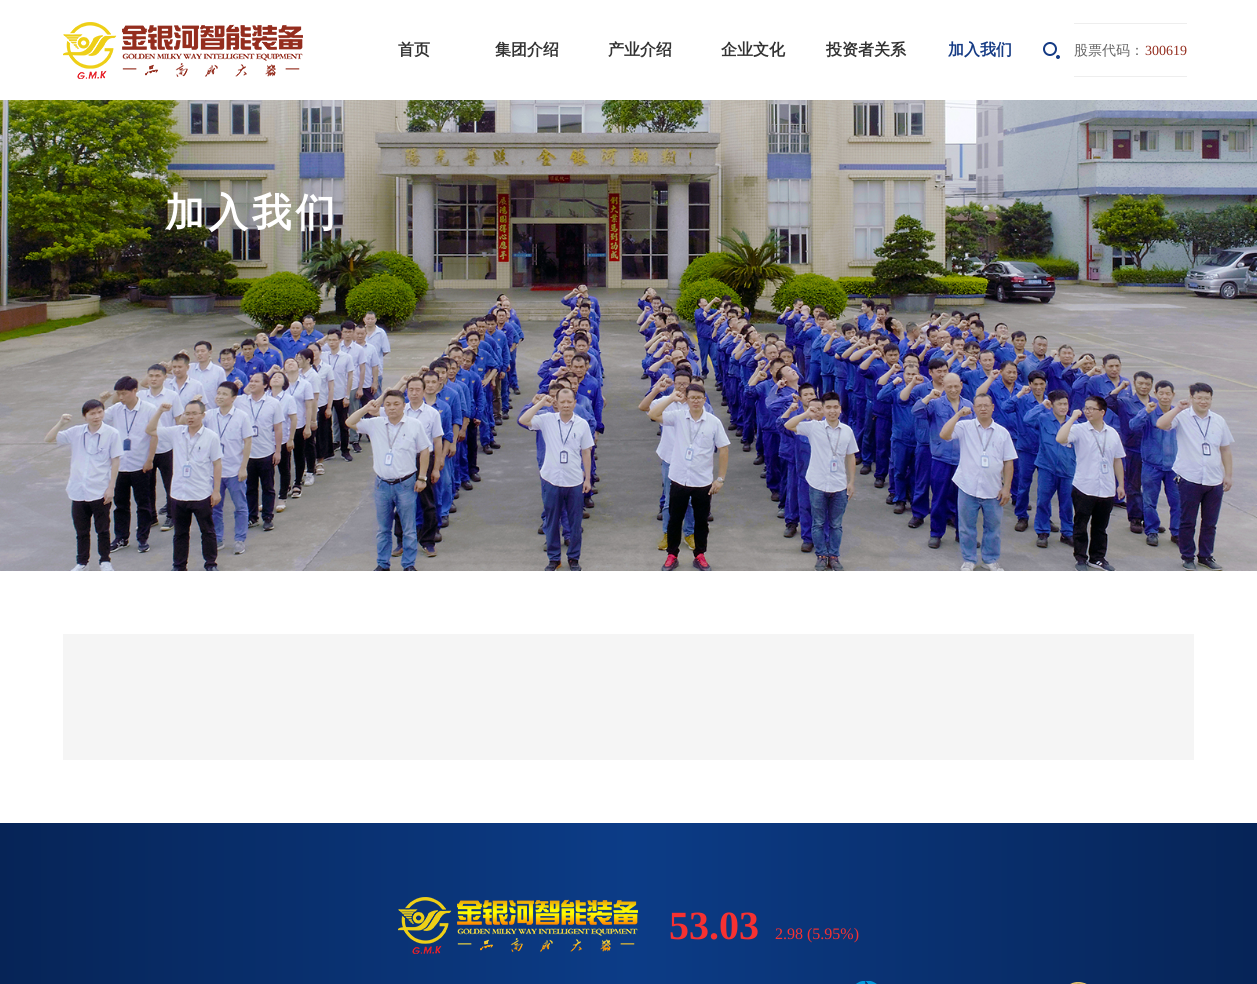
#include <cairo.h>
#include <math.h>
#include <stddef.h>

typedef struct { double x, y; const char *s; } line_t;

static void ink(cairo_t *ctx, unsigned color) {
    cairo_set_source_rgb(ctx, (color >> 16) / 255.0, (color >> 8 & 255) / 255.0, (color & 255) / 255.0);
}

static void write_spaced(cairo_t *ctx, double x, double y, const char *s, double letter, double word) {
    cairo_move_to(ctx, x, y);
    while (*s) {
        char ch[5] = {0};
        int n = 0;
        do ch[n++] = *s++; while ((*s & 0xC0) == 0x80);
        cairo_show_text(ctx, ch);
        cairo_rel_move_to(ctx, letter + word * (*ch == ' '), 0);
    }
}

static void paste(cairo_t *ctx, const char *path, double x, double y, double w, double h) {
    cairo_surface_t *image = cairo_image_surface_create_from_png(path);
    cairo_save(ctx);
    cairo_set_source_surface(ctx, image, x, y);
    cairo_rectangle(ctx, x, y, w, h);
    cairo_fill(ctx);
    cairo_restore(ctx);
    cairo_surface_destroy(image);
}

int main(void) {
    cairo_surface_t *surface = cairo_image_surface_create(CAIRO_FORMAT_RGB24, 1257, 984);
    cairo_t *ctx = cairo_create(surface);
    cairo_font_options_t *options = cairo_font_options_create();
    cairo_font_options_set_hint_metrics(options, CAIRO_HINT_METRICS_OFF);
    cairo_font_options_set_hint_style(options, CAIRO_HINT_STYLE_NONE);
    cairo_set_font_options(ctx, options);
    cairo_set_miter_limit(ctx, 4);
    cairo_pattern_t *gradient;
    ink(ctx, 0xFFFFFF);
    cairo_paint(ctx);
    paste(ctx, "media/1.png", 63, 22, 240, 57);
    cairo_select_font_face(ctx, "WenQuanYi Zen Hei", CAIRO_FONT_SLANT_NORMAL, CAIRO_FONT_WEIGHT_BOLD);
    cairo_set_font_size(ctx, 16);
    ink(ctx, 0x333333);
    {
        static const line_t items[] = {
            {398, 55, "首页"},
            {495, 55, "集团介绍"},
            {608, 55, "产业介绍"},
            {721, 55, "企业文化"},
            {826, 55, "投资者关系"},
        };
        for (size_t i = 0; i < sizeof items / sizeof *items; i++) {
            cairo_move_to(ctx, items[i].x, items[i].y);
            cairo_show_text(ctx, items[i].s);
        }
    }
    ink(ctx, 0x143A84);
    cairo_move_to(ctx, 948, 55);
    cairo_show_text(ctx, "加入我们");
    paste(ctx, "media/2.png", 1043, 42, 17, 17);
    ink(ctx, 0xEEEEEE);
    cairo_rectangle(ctx, 1074, 23, 113, 1);
    cairo_fill(ctx);
    cairo_rectangle(ctx, 1074, 76, 113, 1);
    cairo_fill(ctx);
    cairo_select_font_face(ctx, "WenQuanYi Zen Hei Medium", CAIRO_FONT_SLANT_NORMAL, CAIRO_FONT_WEIGHT_NORMAL);
    cairo_set_font_size(ctx, 14);
    ink(ctx, 0x666666);
    cairo_move_to(ctx, 1074, 55);
    cairo_show_text(ctx, "股票代码：");
    cairo_select_font_face(ctx, "Liberation Serif", CAIRO_FONT_SLANT_NORMAL, CAIRO_FONT_WEIGHT_NORMAL);
    ink(ctx, 0x942D1E);
    cairo_move_to(ctx, 1145, 55);
    cairo_show_text(ctx, "300619");
    paste(ctx, "media/3.png", 0, 100, 1257, 471);
    cairo_select_font_face(ctx, "WenQuanYi Zen Hei", CAIRO_FONT_SLANT_NORMAL, CAIRO_FONT_WEIGHT_BOLD);
    cairo_set_font_size(ctx, 39.5);
    ink(ctx, 0xFFFFFF);
    write_spaced(ctx, 165, 226, "加入我们", 4, 0);
    ink(ctx, 0xF5F5F5);
    cairo_rectangle(ctx, 63, 634, 1131, 126);
    cairo_fill(ctx);
    gradient = cairo_pattern_create_linear(0, 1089, 1257, 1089);
    cairo_pattern_add_color_stop_rgba(gradient, 0, 0.024, 0.141, 0.341, 1);
    cairo_pattern_add_color_stop_rgba(gradient, 0.5, 0.047, 0.235, 0.529, 1);
    cairo_pattern_add_color_stop_rgba(gradient, 1, 0.024, 0.141, 0.341, 1);
    cairo_set_source(ctx, gradient);
    cairo_pattern_destroy(gradient);
    cairo_rectangle(ctx, 0, 823, 1257, 161);
    cairo_fill(ctx);
    paste(ctx, "media/4.png", 398, 897, 240, 57);
    cairo_select_font_face(ctx, "Liberation Serif", CAIRO_FONT_SLANT_NORMAL, CAIRO_FONT_WEIGHT_BOLD);
    cairo_set_font_size(ctx, 40);
    ink(ctx, 0xF73131);
    cairo_move_to(ctx, 669, 939);
    cairo_show_text(ctx, "53.03");
    cairo_select_font_face(ctx, "Liberation Serif", CAIRO_FONT_SLANT_NORMAL, CAIRO_FONT_WEIGHT_NORMAL);
    cairo_set_font_size(ctx, 16);
    cairo_move_to(ctx, 775, 939);
    cairo_show_text(ctx, "2.98 (5.95%)");
    paste(ctx, "media/5.png", 856, 981, 21, 3);
    paste(ctx, "media/6.png", 1070, 982, 17, 2);
    cairo_surface_write_to_png(surface, "image.png");
    cairo_font_options_destroy(options);
    cairo_destroy(ctx);
    cairo_surface_destroy(surface);
    return 0;
}
